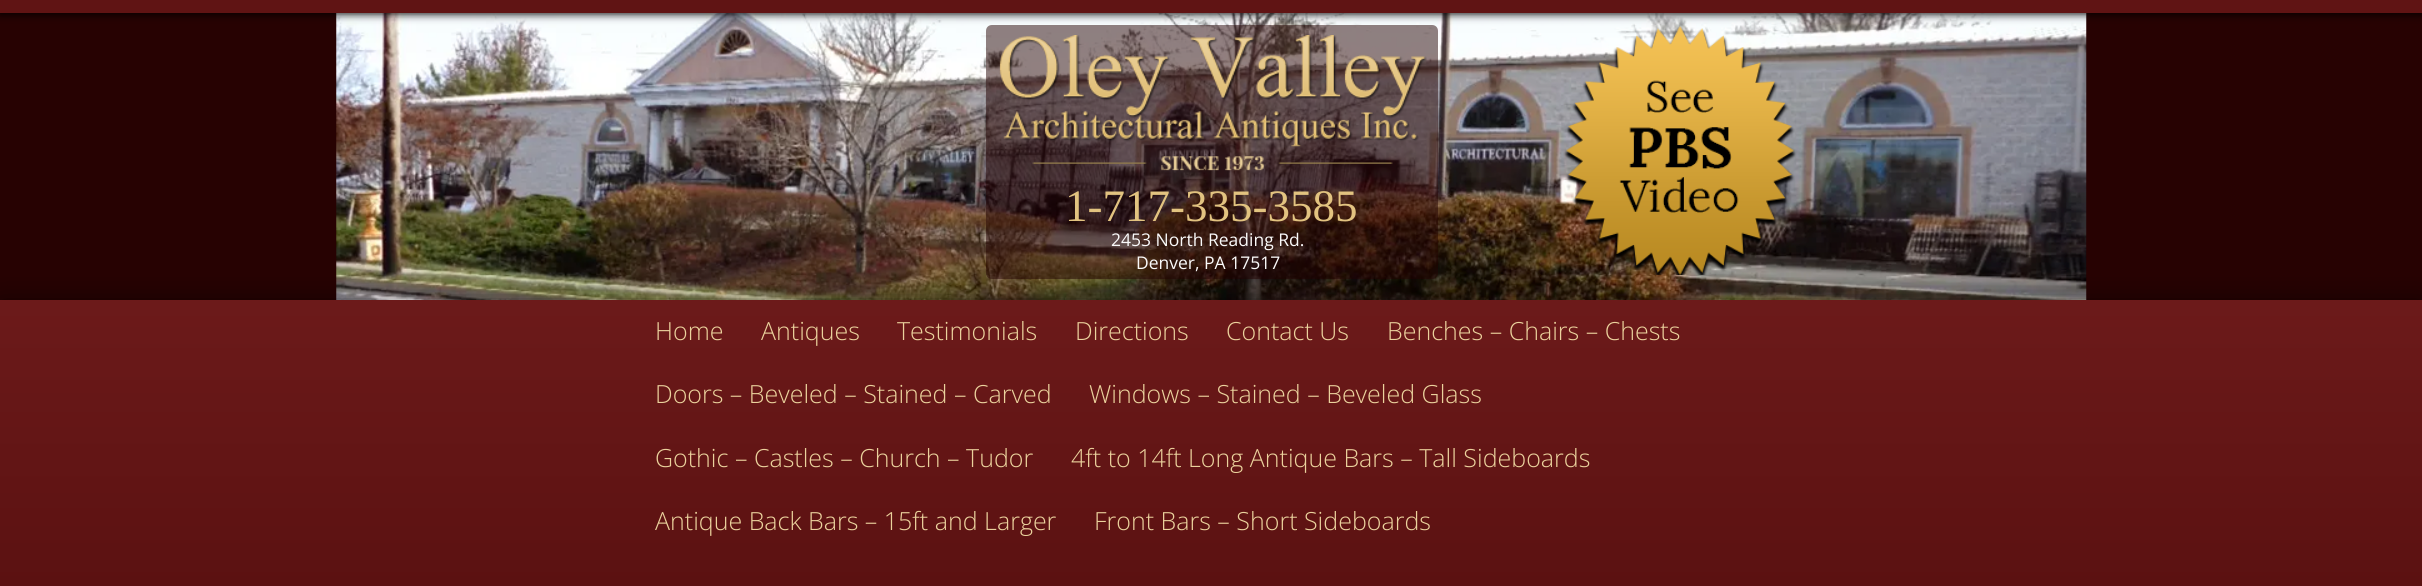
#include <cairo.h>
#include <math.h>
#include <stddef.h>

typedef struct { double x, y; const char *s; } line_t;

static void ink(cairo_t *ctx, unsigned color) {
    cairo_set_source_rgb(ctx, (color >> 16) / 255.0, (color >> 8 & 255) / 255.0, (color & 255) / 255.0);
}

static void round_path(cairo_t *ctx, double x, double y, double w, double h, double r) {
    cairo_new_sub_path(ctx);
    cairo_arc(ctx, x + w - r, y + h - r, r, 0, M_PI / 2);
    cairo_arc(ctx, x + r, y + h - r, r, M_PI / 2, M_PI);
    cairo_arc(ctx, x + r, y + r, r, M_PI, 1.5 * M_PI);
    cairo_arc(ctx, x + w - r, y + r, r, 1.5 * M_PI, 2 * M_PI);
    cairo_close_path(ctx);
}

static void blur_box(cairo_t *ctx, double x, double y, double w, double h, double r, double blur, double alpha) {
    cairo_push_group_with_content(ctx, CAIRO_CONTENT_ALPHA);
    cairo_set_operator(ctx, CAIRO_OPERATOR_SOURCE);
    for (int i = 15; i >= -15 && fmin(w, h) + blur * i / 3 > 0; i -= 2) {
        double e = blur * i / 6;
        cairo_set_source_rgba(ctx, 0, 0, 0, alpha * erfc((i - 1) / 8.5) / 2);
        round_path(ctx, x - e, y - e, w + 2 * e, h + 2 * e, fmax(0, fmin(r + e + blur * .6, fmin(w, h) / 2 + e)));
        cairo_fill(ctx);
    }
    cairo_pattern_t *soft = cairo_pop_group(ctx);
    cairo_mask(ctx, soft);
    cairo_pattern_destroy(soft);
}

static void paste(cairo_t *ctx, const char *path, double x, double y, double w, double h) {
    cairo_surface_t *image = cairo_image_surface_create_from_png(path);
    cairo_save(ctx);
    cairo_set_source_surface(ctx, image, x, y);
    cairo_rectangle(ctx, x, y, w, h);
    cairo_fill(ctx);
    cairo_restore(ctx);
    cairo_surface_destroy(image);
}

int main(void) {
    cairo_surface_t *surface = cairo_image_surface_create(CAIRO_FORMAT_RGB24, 2422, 586);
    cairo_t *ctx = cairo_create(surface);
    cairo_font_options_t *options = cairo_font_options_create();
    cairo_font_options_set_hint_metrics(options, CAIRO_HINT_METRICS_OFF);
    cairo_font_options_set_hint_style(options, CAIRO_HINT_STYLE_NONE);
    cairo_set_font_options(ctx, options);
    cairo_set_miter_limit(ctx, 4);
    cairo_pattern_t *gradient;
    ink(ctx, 0x270202);
    cairo_paint(ctx);
    paste(ctx, "media/1.png", 336, 13, 1751, 287);
    cairo_set_source_rgba(ctx, 0.141, 0.008, 0.008, 0.5);
    cairo_new_path(ctx);
    cairo_move_to(ctx, 992, 25);
    cairo_line_to(ctx, 1432, 25);
    cairo_curve_to(ctx, 1435.5, 25, 1438, 27.5, 1438, 31);
    cairo_line_to(ctx, 1438, 174);
    cairo_line_to(ctx, 986, 174);
    cairo_line_to(ctx, 986, 31);
    cairo_curve_to(ctx, 986, 27.5, 988.5, 25, 992, 25);
    cairo_close_path(ctx);
    cairo_fill(ctx);
    paste(ctx, "media/4.png", 1563, 26, 234, 249);
    ink(ctx, 0x000000);
    blur_box(ctx, 0, 1, 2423, 13, 0, 4.5, 1);
    ink(ctx, 0x601414);
    cairo_rectangle(ctx, 0, 0, 2422, 13);
    cairo_fill(ctx);
    paste(ctx, "media/2.png", 999, 35, 428, 112);
    paste(ctx, "media/3.png", 1032, 156, 361, 15);
    cairo_set_source_rgba(ctx, 0.141, 0.008, 0.008, 0.5);
    cairo_new_path(ctx);
    cairo_move_to(ctx, 986, 174);
    cairo_line_to(ctx, 1438, 174);
    cairo_line_to(ctx, 1438, 273);
    cairo_curve_to(ctx, 1438, 276.5, 1435.5, 279, 1432, 279);
    cairo_line_to(ctx, 992, 279);
    cairo_curve_to(ctx, 988.5, 279, 986, 276.5, 986, 273);
    cairo_close_path(ctx);
    cairo_fill(ctx);
    cairo_select_font_face(ctx, "Liberation Serif", CAIRO_FONT_SLANT_NORMAL, CAIRO_FONT_WEIGHT_NORMAL);
    cairo_set_font_size(ctx, 45);
    ink(ctx, 0xE2C380);
    cairo_move_to(ctx, 1065, 221);
    cairo_show_text(ctx, "1-717-335-3585");
    cairo_select_font_face(ctx, "Open Sans", CAIRO_FONT_SLANT_NORMAL, CAIRO_FONT_WEIGHT_NORMAL);
    cairo_set_font_size(ctx, 17.5);
    ink(ctx, 0xFAFAFA);
    cairo_move_to(ctx, 1111, 246);
    cairo_show_text(ctx, "2453 North Reading Rd.");
    cairo_move_to(ctx, 1136, 269);
    cairo_show_text(ctx, "Denver, PA 17517");
    ink(ctx, 0x000000);
    blur_box(ctx, 0, 300, 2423, 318, 0, 12.5, 0.5);
    gradient = cairo_pattern_create_linear(1211, 300, 1211, 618);
    cairo_pattern_add_color_stop_rgba(gradient, 0, 0.424, 0.102, 0.102, 1);
    cairo_pattern_add_color_stop_rgba(gradient, 1, 0.349, 0.063, 0.063, 1);
    cairo_set_source(ctx, gradient);
    cairo_pattern_destroy(gradient);
    cairo_rectangle(ctx, 0, 300, 2422, 286);
    cairo_fill(ctx);
    cairo_select_font_face(ctx, "Open Sans Light", CAIRO_FONT_SLANT_NORMAL, CAIRO_FONT_WEIGHT_NORMAL);
    cairo_set_font_size(ctx, 25);
    ink(ctx, 0xEBD29D);
    {
        static const line_t items[] = {
            {655, 340, "Home"},
            {761, 340, "Antiques"},
            {897, 340, "Testimonials"},
            {1075, 340, "Directions"},
            {1226, 340, "Contact Us"},
            {1387, 340, "Benches – Chairs – Chests"},
            {655, 403, "Doors – Beveled – Stained – Carved"},
            {1089, 403, "Windows – Stained – Beveled Glass"},
            {655, 467, "Gothic – Castles – Church – Tudor"},
            {1071, 467, "4ft to 14ft Long Antique Bars – Tall Sideboards"},
            {655, 530, "Antique Back Bars – 15ft and Larger"},
            {1094, 530, "Front Bars – Short Sideboards"},
        };
        for (size_t i = 0; i < sizeof items / sizeof *items; i++) {
            cairo_move_to(ctx, items[i].x, items[i].y);
            cairo_show_text(ctx, items[i].s);
        }
    }
    cairo_surface_write_to_png(surface, "image.png");
    cairo_font_options_destroy(options);
    cairo_destroy(ctx);
    cairo_surface_destroy(surface);
    return 0;
}
